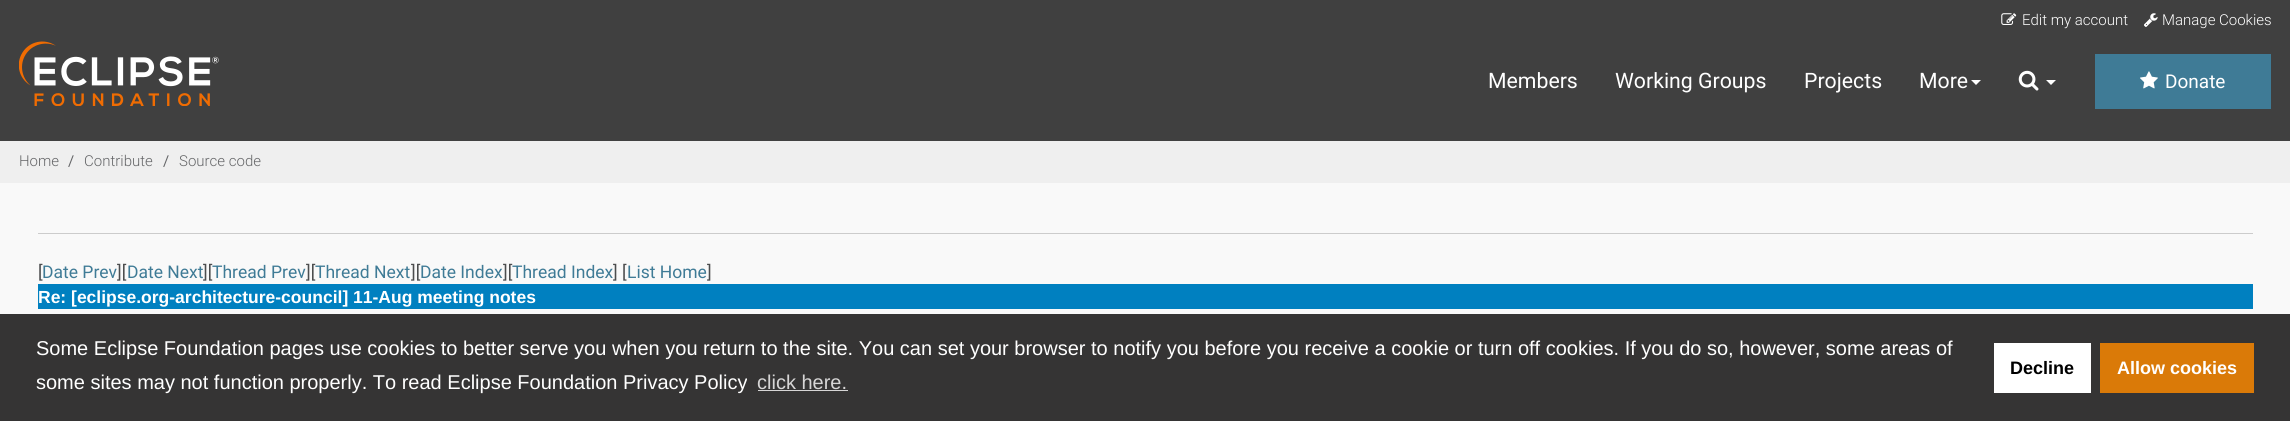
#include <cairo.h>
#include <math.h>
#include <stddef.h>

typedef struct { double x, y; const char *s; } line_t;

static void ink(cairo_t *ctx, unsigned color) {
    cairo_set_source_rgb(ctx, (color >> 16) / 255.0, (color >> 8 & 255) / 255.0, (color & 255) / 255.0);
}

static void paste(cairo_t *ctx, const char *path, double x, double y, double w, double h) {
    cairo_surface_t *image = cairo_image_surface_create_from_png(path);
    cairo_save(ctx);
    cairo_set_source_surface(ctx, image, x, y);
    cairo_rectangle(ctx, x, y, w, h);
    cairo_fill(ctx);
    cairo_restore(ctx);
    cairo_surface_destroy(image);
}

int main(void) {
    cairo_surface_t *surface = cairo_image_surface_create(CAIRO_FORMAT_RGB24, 2290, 421);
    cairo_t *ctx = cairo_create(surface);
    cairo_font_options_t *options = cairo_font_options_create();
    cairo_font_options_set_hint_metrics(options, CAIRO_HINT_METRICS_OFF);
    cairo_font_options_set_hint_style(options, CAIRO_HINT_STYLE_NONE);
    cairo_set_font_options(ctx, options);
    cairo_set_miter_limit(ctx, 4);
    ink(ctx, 0xF9F9F9);
    cairo_paint(ctx);
    ink(ctx, 0x404040);
    cairo_rectangle(ctx, 0, 0, 2290, 141);
    cairo_fill(ctx);
    paste(ctx, "media/1.png", 2001, 13, 16, 12);
    cairo_select_font_face(ctx, "Roboto Light", CAIRO_FONT_SLANT_NORMAL, CAIRO_FONT_WEIGHT_NORMAL);
    cairo_set_font_size(ctx, 15);
    ink(ctx, 0xFFFFFF);
    cairo_move_to(ctx, 2022, 25);
    cairo_show_text(ctx, "Edit my account");
    paste(ctx, "media/2.png", 2144, 13, 14, 14);
    cairo_move_to(ctx, 2162, 25);
    cairo_show_text(ctx, "Manage Cookies");
    paste(ctx, "media/3.png", 19, 41, 200, 65);
    cairo_select_font_face(ctx, "Roboto", CAIRO_FONT_SLANT_NORMAL, CAIRO_FONT_WEIGHT_NORMAL);
    cairo_set_font_size(ctx, 21.25);
    {
        static const line_t items[] = {
            {1488, 88, "Members"},
            {1615, 88, "Working Groups"},
            {1804, 88, "Projects"},
            {1919, 88, "More"},
        };
        for (size_t i = 0; i < sizeof items / sizeof *items; i++) {
            cairo_move_to(ctx, items[i].x, items[i].y);
            cairo_show_text(ctx, items[i].s);
        }
    }
    cairo_new_path(ctx);
    cairo_move_to(ctx, 1971, 80);
    cairo_line_to(ctx, 1981, 80);
    cairo_line_to(ctx, 1976, 85);
    cairo_close_path(ctx);
    cairo_fill(ctx);
    paste(ctx, "media/4.png", 2018, 70, 21, 21);
    cairo_new_path(ctx);
    cairo_move_to(ctx, 2046, 80);
    cairo_line_to(ctx, 2056, 80);
    cairo_line_to(ctx, 2051, 85);
    cairo_close_path(ctx);
    cairo_fill(ctx);
    ink(ctx, 0x3F7B96);
    cairo_rectangle(ctx, 2095, 54, 176, 55);
    cairo_fill(ctx);
    paste(ctx, "media/5.png", 2140, 71, 18, 18);
    cairo_set_font_size(ctx, 19);
    ink(ctx, 0xFFFFFF);
    cairo_move_to(ctx, 2165, 88);
    cairo_show_text(ctx, "Donate");
    ink(ctx, 0xEFEFEF);
    cairo_rectangle(ctx, 0, 141, 2290, 42);
    cairo_fill(ctx);
    cairo_select_font_face(ctx, "Roboto Light", CAIRO_FONT_SLANT_NORMAL, CAIRO_FONT_WEIGHT_NORMAL);
    cairo_set_font_size(ctx, 15);
    ink(ctx, 0x656668);
    cairo_move_to(ctx, 19, 166);
    cairo_show_text(ctx, "Home");
    cairo_select_font_face(ctx, "Roboto", CAIRO_FONT_SLANT_NORMAL, CAIRO_FONT_WEIGHT_NORMAL);
    cairo_move_to(ctx, 68, 166);
    cairo_show_text(ctx, "/");
    cairo_select_font_face(ctx, "Roboto Light", CAIRO_FONT_SLANT_NORMAL, CAIRO_FONT_WEIGHT_NORMAL);
    cairo_move_to(ctx, 84, 166);
    cairo_show_text(ctx, "Contribute");
    cairo_select_font_face(ctx, "Roboto", CAIRO_FONT_SLANT_NORMAL, CAIRO_FONT_WEIGHT_NORMAL);
    cairo_move_to(ctx, 163, 166);
    cairo_show_text(ctx, "/");
    cairo_select_font_face(ctx, "Roboto Light", CAIRO_FONT_SLANT_NORMAL, CAIRO_FONT_WEIGHT_NORMAL);
    cairo_move_to(ctx, 179, 166);
    cairo_show_text(ctx, "Source code");
    ink(ctx, 0xCCCCCC);
    cairo_rectangle(ctx, 38, 233, 2215, 1);
    cairo_fill(ctx);
    cairo_select_font_face(ctx, "Roboto", CAIRO_FONT_SLANT_NORMAL, CAIRO_FONT_WEIGHT_NORMAL);
    cairo_set_font_size(ctx, 17.5);
    ink(ctx, 0x4C4D4E);
    cairo_move_to(ctx, 38, 278);
    cairo_show_text(ctx, "[");
    ink(ctx, 0x3F7B96);
    cairo_move_to(ctx, 42, 278);
    cairo_show_text(ctx, "Date Prev");
    ink(ctx, 0x4C4D4E);
    cairo_move_to(ctx, 117, 278);
    cairo_show_text(ctx, "][");
    ink(ctx, 0x3F7B96);
    cairo_move_to(ctx, 127, 278);
    cairo_show_text(ctx, "Date Next");
    ink(ctx, 0x4C4D4E);
    cairo_move_to(ctx, 203, 278);
    cairo_show_text(ctx, "][");
    ink(ctx, 0x3F7B96);
    cairo_move_to(ctx, 212, 278);
    cairo_show_text(ctx, "Thread Prev");
    ink(ctx, 0x4C4D4E);
    cairo_move_to(ctx, 306, 278);
    cairo_show_text(ctx, "][");
    ink(ctx, 0x3F7B96);
    cairo_move_to(ctx, 315, 278);
    cairo_show_text(ctx, "Thread Next");
    ink(ctx, 0x4C4D4E);
    cairo_move_to(ctx, 411, 278);
    cairo_show_text(ctx, "][");
    ink(ctx, 0x3F7B96);
    cairo_move_to(ctx, 420, 278);
    cairo_show_text(ctx, "Date Index");
    ink(ctx, 0x4C4D4E);
    cairo_move_to(ctx, 503, 278);
    cairo_show_text(ctx, "][");
    ink(ctx, 0x3F7B96);
    cairo_move_to(ctx, 512, 278);
    cairo_show_text(ctx, "Thread Index");
    ink(ctx, 0x4C4D4E);
    cairo_move_to(ctx, 613, 278);
    cairo_show_text(ctx, "] [");
    ink(ctx, 0x3F7B96);
    cairo_move_to(ctx, 627, 278);
    cairo_show_text(ctx, "List Home");
    ink(ctx, 0x4C4D4E);
    cairo_move_to(ctx, 707, 278);
    cairo_show_text(ctx, "]");
    ink(ctx, 0x0080C0);
    cairo_rectangle(ctx, 38, 284, 2215, 25);
    cairo_fill(ctx);
    cairo_select_font_face(ctx, "Liberation Sans", CAIRO_FONT_SLANT_NORMAL, CAIRO_FONT_WEIGHT_BOLD);
    ink(ctx, 0xFFFFFF);
    cairo_move_to(ctx, 38, 303);
    cairo_show_text(ctx, "Re: [eclipse.org-architecture-council] 11-Aug meeting notes");
    ink(ctx, 0x353434);
    cairo_rectangle(ctx, 0, 314, 2290, 107);
    cairo_fill(ctx);
    cairo_select_font_face(ctx, "Liberation Sans", CAIRO_FONT_SLANT_NORMAL, CAIRO_FONT_WEIGHT_NORMAL);
    cairo_set_font_size(ctx, 20);
    ink(ctx, 0xFFFFFF);
    cairo_move_to(ctx, 36, 355);
    cairo_show_text(ctx, "Some Eclipse Foundation pages use cookies to better serve you when you return to the site. You can set your browser to notify you before you receive a cookie or turn off cookies. If you do so, however, some areas of");
    cairo_move_to(ctx, 36, 389);
    cairo_show_text(ctx, "some sites may not function properly. To read Eclipse Foundation Privacy Policy");
    ink(ctx, 0xD7D6D6);
    cairo_move_to(ctx, 757, 389);
    cairo_show_text(ctx, "click here.");
    cairo_rectangle(ctx, 758, 390, 90, 1);
    cairo_fill(ctx);
    ink(ctx, 0xFFFFFF);
    cairo_rectangle(ctx, 1994, 343, 97, 50);
    cairo_fill(ctx);
    cairo_select_font_face(ctx, "Liberation Sans", CAIRO_FONT_SLANT_NORMAL, CAIRO_FONT_WEIGHT_BOLD);
    cairo_set_font_size(ctx, 18);
    ink(ctx, 0x000000);
    cairo_move_to(ctx, 2010, 374);
    cairo_show_text(ctx, "Decline");
    ink(ctx, 0xDA7A08);
    cairo_rectangle(ctx, 2100, 343, 154, 50);
    cairo_fill(ctx);
    ink(ctx, 0xFFFFFF);
    cairo_move_to(ctx, 2117, 374);
    cairo_show_text(ctx, "Allow cookies");
    cairo_surface_write_to_png(surface, "image.png");
    cairo_font_options_destroy(options);
    cairo_destroy(ctx);
    cairo_surface_destroy(surface);
    return 0;
}
